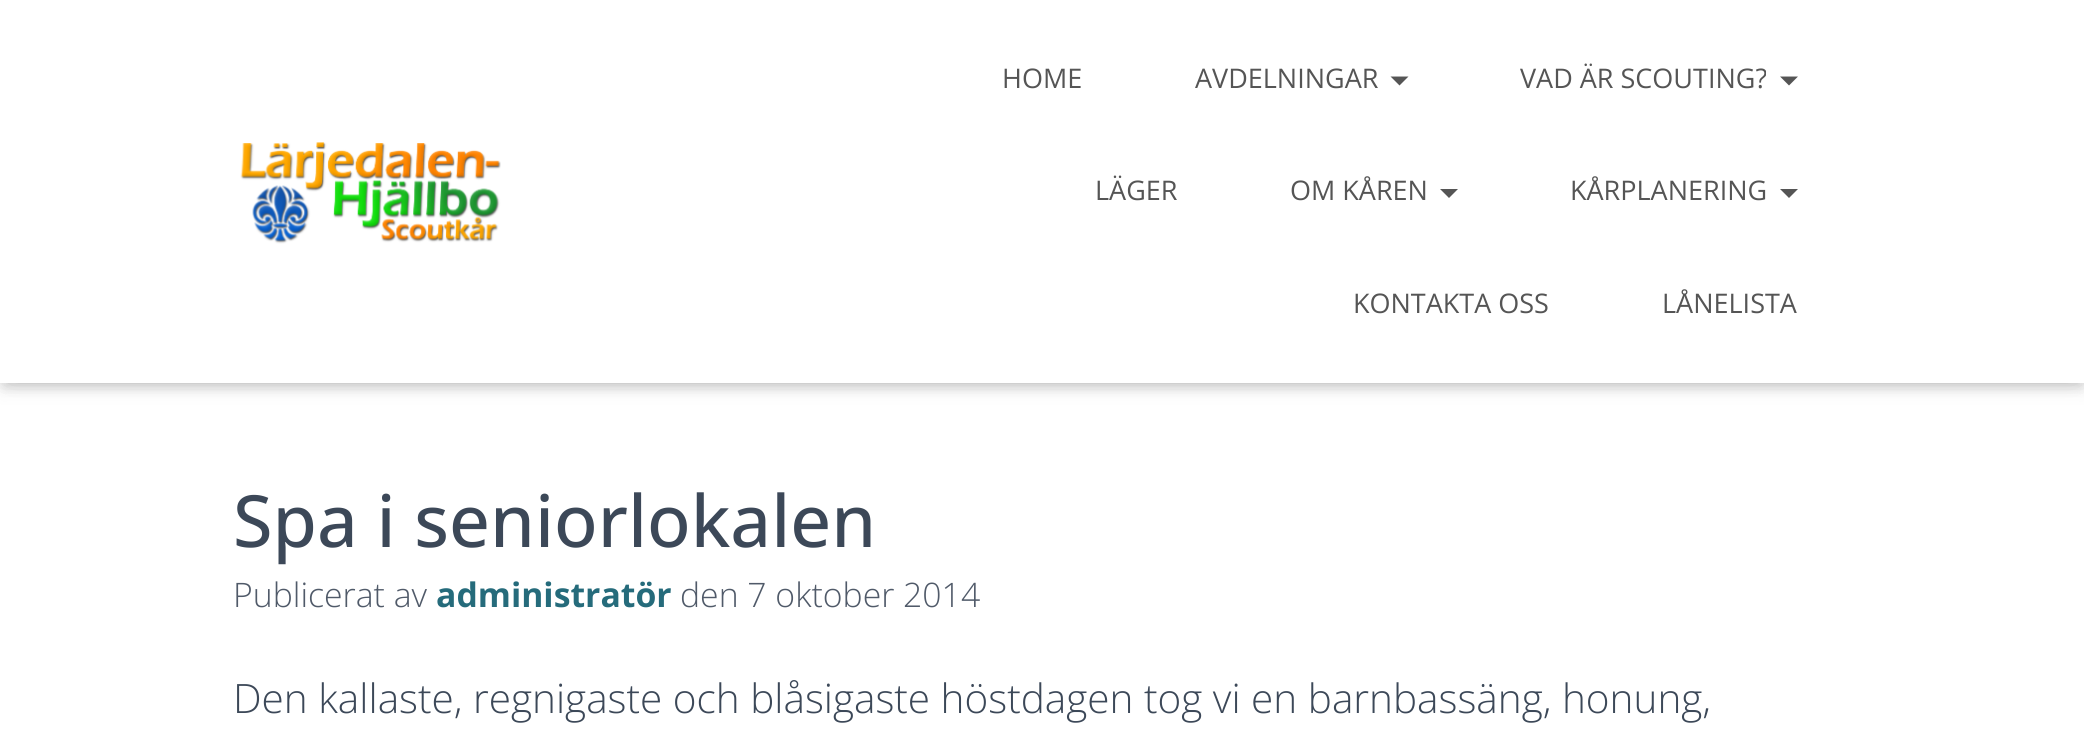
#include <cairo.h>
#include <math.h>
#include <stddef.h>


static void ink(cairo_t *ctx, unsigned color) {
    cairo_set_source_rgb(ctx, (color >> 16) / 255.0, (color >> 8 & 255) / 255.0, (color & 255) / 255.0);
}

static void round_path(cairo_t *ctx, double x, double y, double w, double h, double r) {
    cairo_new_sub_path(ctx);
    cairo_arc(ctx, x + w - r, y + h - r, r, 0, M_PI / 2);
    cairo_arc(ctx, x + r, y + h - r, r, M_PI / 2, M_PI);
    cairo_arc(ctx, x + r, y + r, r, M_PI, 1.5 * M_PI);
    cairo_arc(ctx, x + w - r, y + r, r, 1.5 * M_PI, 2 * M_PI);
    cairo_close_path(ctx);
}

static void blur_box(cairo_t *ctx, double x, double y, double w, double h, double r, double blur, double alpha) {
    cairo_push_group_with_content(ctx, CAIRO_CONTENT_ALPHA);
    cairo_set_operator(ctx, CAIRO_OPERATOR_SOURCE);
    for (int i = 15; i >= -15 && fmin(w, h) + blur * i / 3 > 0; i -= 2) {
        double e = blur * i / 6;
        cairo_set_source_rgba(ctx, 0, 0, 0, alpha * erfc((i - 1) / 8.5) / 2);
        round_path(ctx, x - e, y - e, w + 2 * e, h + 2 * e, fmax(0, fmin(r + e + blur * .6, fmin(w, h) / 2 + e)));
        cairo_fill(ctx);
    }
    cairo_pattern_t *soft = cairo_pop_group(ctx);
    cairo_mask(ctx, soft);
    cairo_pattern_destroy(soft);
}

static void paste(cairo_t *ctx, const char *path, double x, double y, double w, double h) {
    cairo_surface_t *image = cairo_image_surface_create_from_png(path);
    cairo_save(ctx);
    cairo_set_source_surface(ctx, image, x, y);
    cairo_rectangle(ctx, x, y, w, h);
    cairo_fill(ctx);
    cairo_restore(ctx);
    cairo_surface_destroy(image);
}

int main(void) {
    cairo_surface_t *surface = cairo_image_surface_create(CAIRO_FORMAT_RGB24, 2084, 731);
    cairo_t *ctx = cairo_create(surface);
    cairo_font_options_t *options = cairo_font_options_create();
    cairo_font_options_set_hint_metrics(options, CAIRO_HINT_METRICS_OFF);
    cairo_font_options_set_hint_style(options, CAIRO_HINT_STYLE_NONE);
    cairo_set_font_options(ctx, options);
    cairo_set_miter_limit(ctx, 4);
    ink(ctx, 0xFFFFFF);
    cairo_paint(ctx);
    ink(ctx, 0x000000);
    blur_box(ctx, 5, 14, 2076, 373, 0, 5.5, 0.1);
    blur_box(ctx, 0, 2, 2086, 383, 0, 11, 0.12);
    blur_box(ctx, 14, 16, 2058, 355, 0, 11, 0.42);
    ink(ctx, 0xFFFFFF);
    cairo_rectangle(ctx, 0, 0, 2084, 383);
    cairo_fill(ctx);
    paste(ctx, "media/1.png", 240, 142, 261, 102);
    cairo_select_font_face(ctx, "Open Sans", CAIRO_FONT_SLANT_NORMAL, CAIRO_FONT_WEIGHT_NORMAL);
    cairo_set_font_size(ctx, 27);
    ink(ctx, 0x555555);
    cairo_move_to(ctx, 1002, 88);
    cairo_show_text(ctx, "HOME");
    cairo_move_to(ctx, 1195, 88);
    cairo_show_text(ctx, "AVDELNINGAR");
    cairo_new_path(ctx);
    cairo_move_to(ctx, 1390.5, 76.5);
    cairo_line_to(ctx, 1408.5, 76.5);
    cairo_line_to(ctx, 1399.5, 85.5);
    cairo_close_path(ctx);
    cairo_fill(ctx);
    cairo_move_to(ctx, 1520, 88);
    cairo_show_text(ctx, "VAD ÄR SCOUTING?");
    cairo_new_path(ctx);
    cairo_move_to(ctx, 1780, 76.5);
    cairo_line_to(ctx, 1798, 76.5);
    cairo_line_to(ctx, 1789, 85.5);
    cairo_close_path(ctx);
    cairo_fill(ctx);
    cairo_move_to(ctx, 1095, 200);
    cairo_show_text(ctx, "LÄGER");
    cairo_move_to(ctx, 1290, 200);
    cairo_show_text(ctx, "OM KÅREN");
    cairo_new_path(ctx);
    cairo_move_to(ctx, 1440, 189);
    cairo_line_to(ctx, 1458, 189);
    cairo_line_to(ctx, 1449, 198);
    cairo_close_path(ctx);
    cairo_fill(ctx);
    cairo_move_to(ctx, 1570, 200);
    cairo_show_text(ctx, "KÅRPLANERING");
    cairo_new_path(ctx);
    cairo_move_to(ctx, 1780, 189);
    cairo_line_to(ctx, 1798, 189);
    cairo_line_to(ctx, 1789, 198);
    cairo_close_path(ctx);
    cairo_fill(ctx);
    cairo_move_to(ctx, 1353, 313);
    cairo_show_text(ctx, "KONTAKTA OSS");
    cairo_move_to(ctx, 1662, 313);
    cairo_show_text(ctx, "LÅNELISTA");
    cairo_select_font_face(ctx, "Open Sans Medium", CAIRO_FONT_SLANT_NORMAL, CAIRO_FONT_WEIGHT_NORMAL);
    cairo_set_font_size(ctx, 72);
    ink(ctx, 0x3C4858);
    cairo_move_to(ctx, 233, 547);
    cairo_show_text(ctx, "Spa i seniorlokalen");
    cairo_select_font_face(ctx, "Open Sans Light", CAIRO_FONT_SLANT_NORMAL, CAIRO_FONT_WEIGHT_NORMAL);
    cairo_set_font_size(ctx, 33.75);
    ink(ctx, 0x505A69);
    cairo_move_to(ctx, 233, 607);
    cairo_show_text(ctx, "Publicerat av");
    cairo_select_font_face(ctx, "Open Sans", CAIRO_FONT_SLANT_NORMAL, CAIRO_FONT_WEIGHT_BOLD);
    ink(ctx, 0x256B7B);
    cairo_move_to(ctx, 436, 607);
    cairo_show_text(ctx, "administratör");
    cairo_select_font_face(ctx, "Open Sans Light", CAIRO_FONT_SLANT_NORMAL, CAIRO_FONT_WEIGHT_NORMAL);
    ink(ctx, 0x505A69);
    cairo_move_to(ctx, 680, 607);
    cairo_show_text(ctx, "den 7 oktober 2014");
    cairo_set_font_size(ctx, 40.5);
    ink(ctx, 0x3C4858);
    cairo_move_to(ctx, 233, 713);
    cairo_show_text(ctx, "Den kallaste, regnigaste och blåsigaste höstdagen tog vi en barnbassäng, honung,");
    cairo_surface_write_to_png(surface, "image.png");
    cairo_font_options_destroy(options);
    cairo_destroy(ctx);
    cairo_surface_destroy(surface);
    return 0;
}
